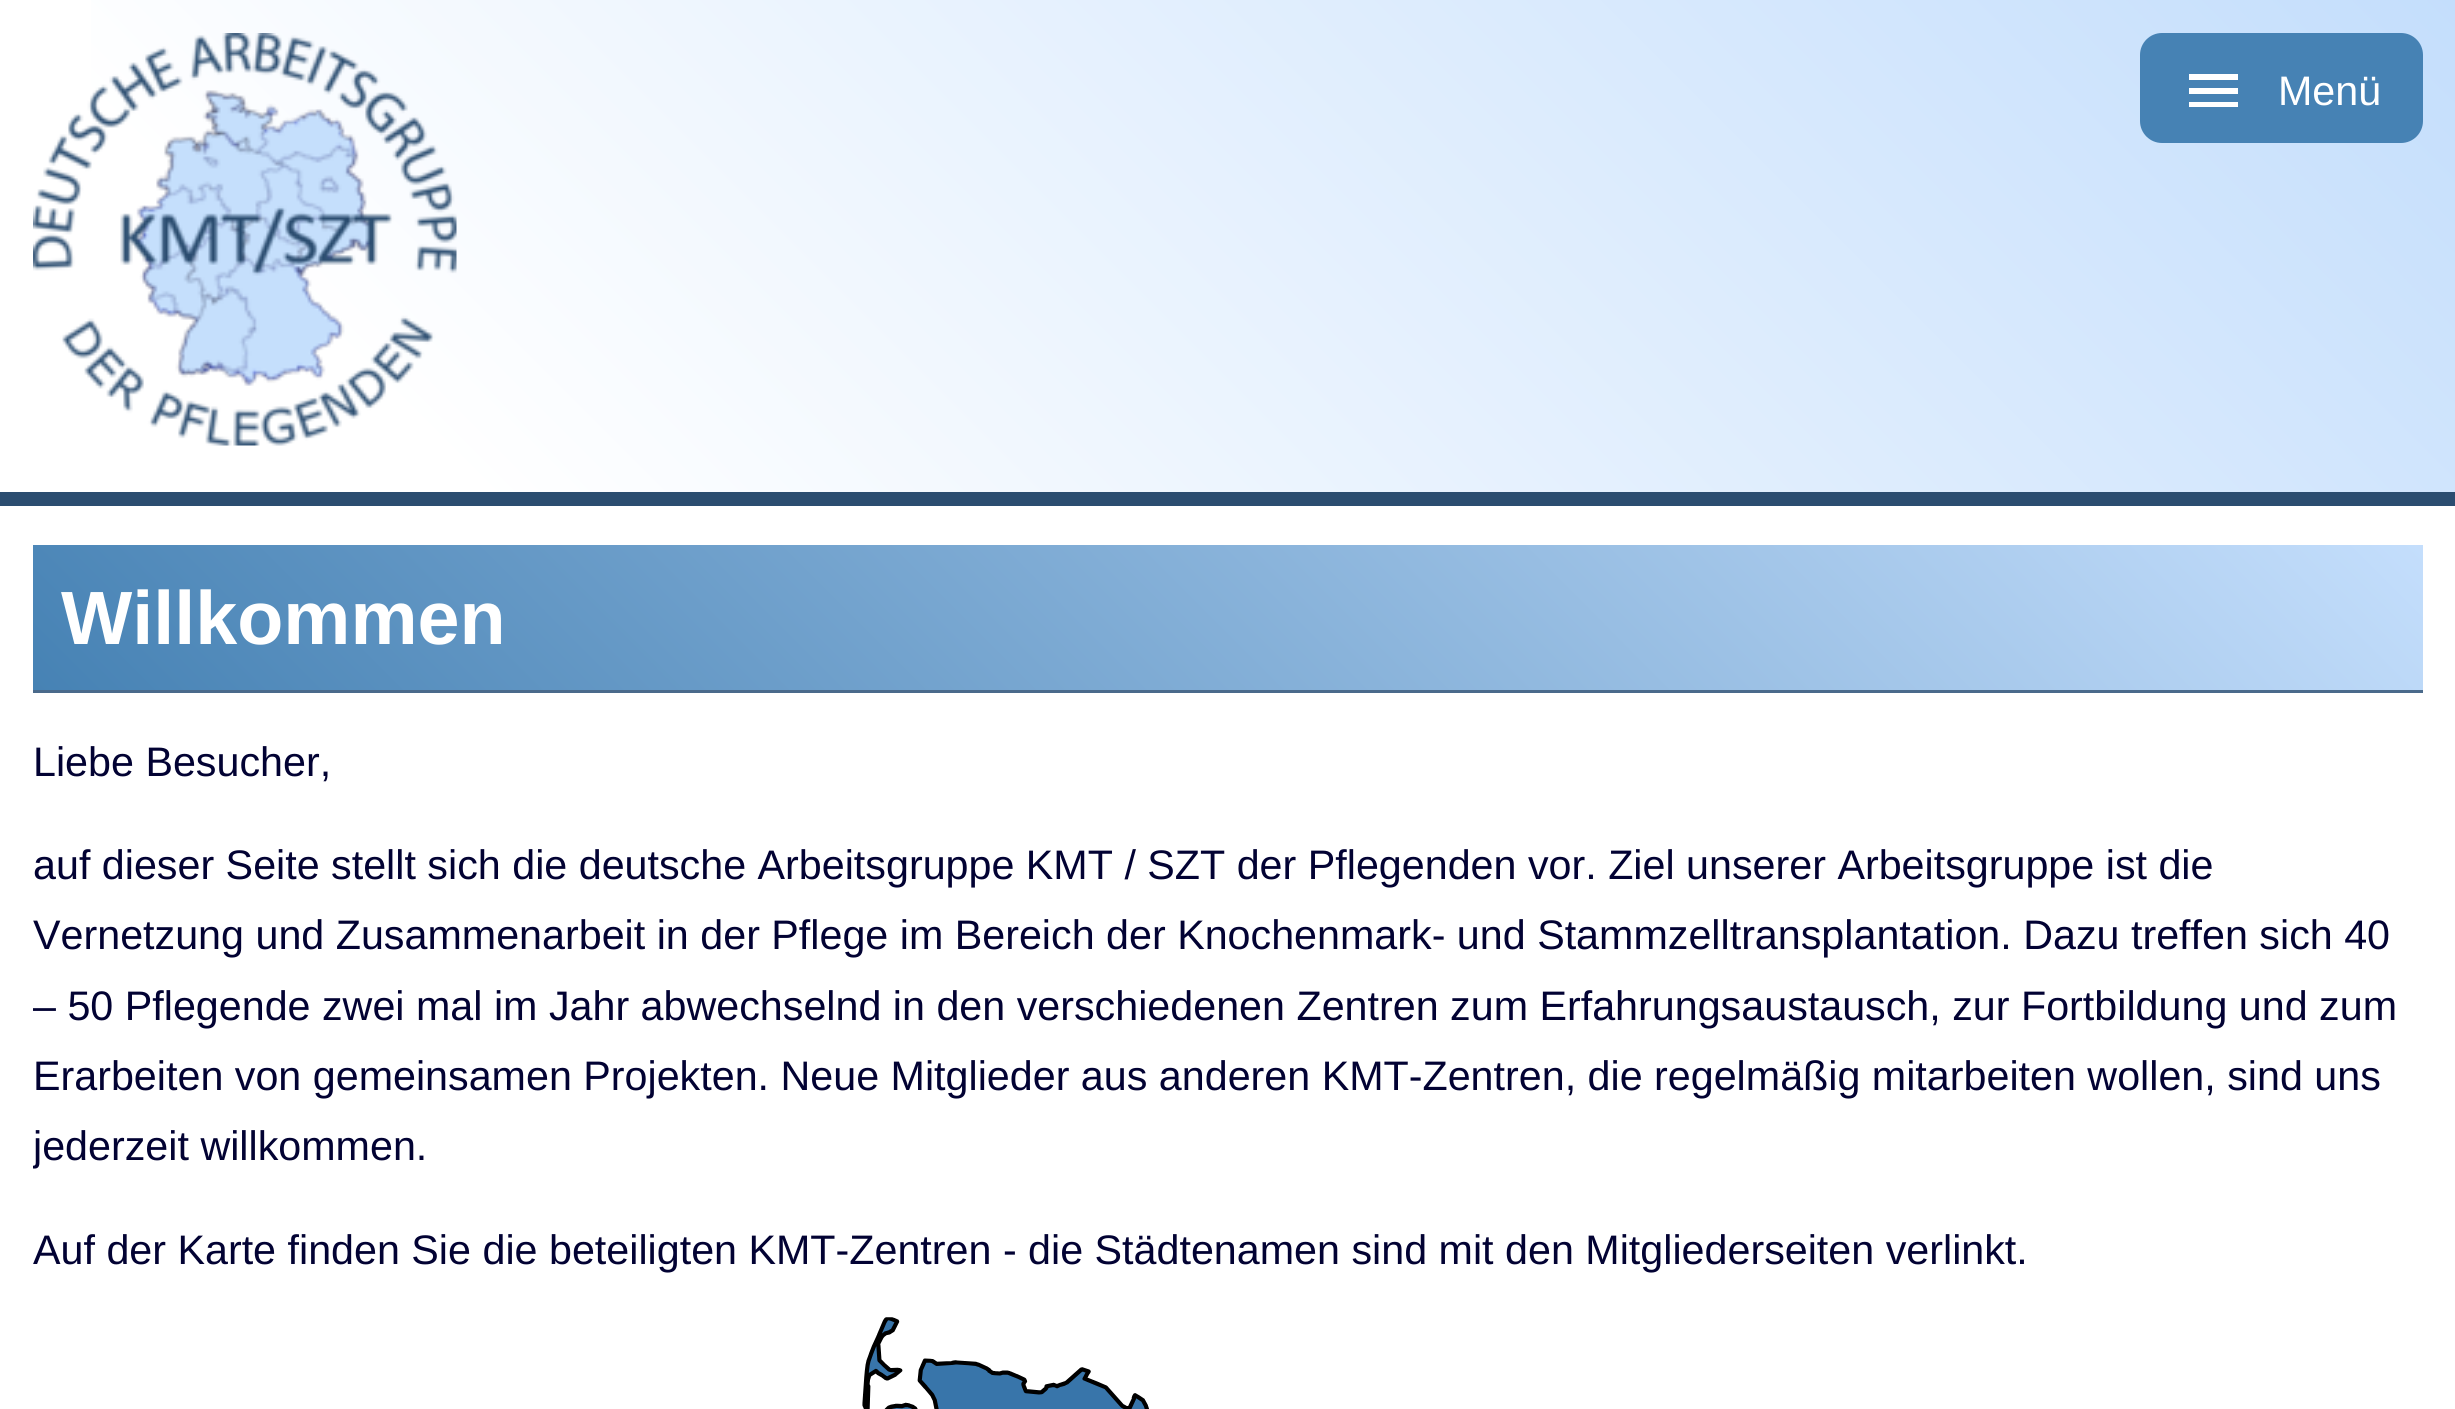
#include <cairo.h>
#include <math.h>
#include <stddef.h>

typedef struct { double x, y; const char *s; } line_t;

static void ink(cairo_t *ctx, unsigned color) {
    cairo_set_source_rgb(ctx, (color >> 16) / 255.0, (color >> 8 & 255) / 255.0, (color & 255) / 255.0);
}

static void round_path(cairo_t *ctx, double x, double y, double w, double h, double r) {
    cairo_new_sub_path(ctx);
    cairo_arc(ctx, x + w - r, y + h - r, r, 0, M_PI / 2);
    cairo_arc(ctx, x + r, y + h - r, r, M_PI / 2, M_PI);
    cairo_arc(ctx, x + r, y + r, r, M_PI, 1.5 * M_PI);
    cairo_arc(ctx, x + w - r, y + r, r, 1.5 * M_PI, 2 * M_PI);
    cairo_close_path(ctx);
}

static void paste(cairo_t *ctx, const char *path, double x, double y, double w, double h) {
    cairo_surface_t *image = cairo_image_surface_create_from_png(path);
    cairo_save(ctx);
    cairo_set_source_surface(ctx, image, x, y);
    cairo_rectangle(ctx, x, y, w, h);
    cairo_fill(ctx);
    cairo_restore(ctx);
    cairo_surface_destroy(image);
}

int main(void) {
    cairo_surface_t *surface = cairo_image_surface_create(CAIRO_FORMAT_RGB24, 2455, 1409);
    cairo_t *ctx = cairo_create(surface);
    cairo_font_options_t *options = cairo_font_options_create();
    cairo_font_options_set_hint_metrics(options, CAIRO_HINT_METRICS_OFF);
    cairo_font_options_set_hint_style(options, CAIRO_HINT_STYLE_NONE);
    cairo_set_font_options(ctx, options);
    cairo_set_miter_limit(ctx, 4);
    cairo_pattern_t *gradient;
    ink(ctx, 0xFFFFFF);
    cairo_paint(ctx);
    gradient = cairo_pattern_create_linear(456, 1088, 2000, -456);
    cairo_pattern_add_color_stop_rgba(gradient, 0.2, 1, 1, 1, 1);
    cairo_pattern_add_color_stop_rgba(gradient, 1, 0.769, 0.871, 0.988, 1);
    cairo_set_source(ctx, gradient);
    cairo_pattern_destroy(gradient);
    cairo_rectangle(ctx, 91, 0, 2364, 492);
    cairo_fill(ctx);
    ink(ctx, 0x2B4D70);
    cairo_rectangle(ctx, 0, 492, 2455, 14);
    cairo_fill(ctx);
    paste(ctx, "media/1.png", 33, 33, 424, 413);
    ink(ctx, 0x4682B4);
    round_path(ctx, 2140, 33, 283, 110, 22);
    cairo_fill(ctx);
    ink(ctx, 0xFFFFFF);
    cairo_new_path(ctx);
    cairo_move_to(ctx, 2189, 107);
    cairo_line_to(ctx, 2238, 107);
    cairo_line_to(ctx, 2238, 102);
    cairo_line_to(ctx, 2189, 102);
    cairo_close_path(ctx);
    cairo_move_to(ctx, 2189, 94);
    cairo_line_to(ctx, 2238, 94);
    cairo_line_to(ctx, 2238, 88);
    cairo_line_to(ctx, 2189, 88);
    cairo_close_path(ctx);
    cairo_move_to(ctx, 2189, 74);
    cairo_line_to(ctx, 2189, 80);
    cairo_line_to(ctx, 2238, 80);
    cairo_line_to(ctx, 2238, 74);
    cairo_close_path(ctx);
    cairo_fill(ctx);
    cairo_select_font_face(ctx, "Liberation Sans", CAIRO_FONT_SLANT_NORMAL, CAIRO_FONT_WEIGHT_NORMAL);
    cairo_set_font_size(ctx, 41.25);
    cairo_move_to(ctx, 2278, 105);
    cairo_show_text(ctx, "Menü");
    gradient = cairo_pattern_create_linear(594, 1251, 1862, -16);
    cairo_pattern_add_color_stop_rgba(gradient, 0, 0.275, 0.51, 0.706, 1);
    cairo_pattern_add_color_stop_rgba(gradient, 1, 0.769, 0.871, 0.988, 1);
    cairo_set_source(ctx, gradient);
    cairo_pattern_destroy(gradient);
    cairo_rectangle(ctx, 33, 545, 2390, 145);
    cairo_fill(ctx);
    ink(ctx, 0x4A6A8B);
    cairo_rectangle(ctx, 33, 690, 2390, 3);
    cairo_fill(ctx);
    cairo_select_font_face(ctx, "Liberation Sans", CAIRO_FONT_SLANT_NORMAL, CAIRO_FONT_WEIGHT_BOLD);
    cairo_set_font_size(ctx, 75.5);
    ink(ctx, 0xFFFFFF);
    cairo_move_to(ctx, 61, 644);
    cairo_show_text(ctx, "Willkommen");
    cairo_select_font_face(ctx, "Liberation Sans", CAIRO_FONT_SLANT_NORMAL, CAIRO_FONT_WEIGHT_NORMAL);
    cairo_set_font_size(ctx, 41.25);
    ink(ctx, 0x020233);
    {
        static const line_t items[] = {
            {33, 776, "Liebe Besucher,"},
            {33, 879, "auf dieser Seite stellt sich die deutsche Arbeitsgruppe KMT / SZT der Pflegenden vor. Ziel unserer Arbeitsgruppe ist die"},
            {33, 949, "Vernetzung und Zusammenarbeit in der Pflege im Bereich der Knochenmark- und Stammzelltransplantation. Dazu treffen sich 40"},
            {33, 1020, "– 50 Pflegende zwei mal im Jahr abwechselnd in den verschiedenen Zentren zum Erfahrungsaustausch, zur Fortbildung und zum"},
            {33, 1090, "Erarbeiten von gemeinsamen Projekten. Neue Mitglieder aus anderen KMT-Zentren, die regelmäßig mitarbeiten wollen, sind uns"},
        };
        for (size_t i = 0; i < sizeof items / sizeof *items; i++) {
            cairo_move_to(ctx, items[i].x, items[i].y);
            cairo_show_text(ctx, items[i].s);
        }
    }
    cairo_save(ctx);
    cairo_rectangle(ctx, 33, 517, 2390, 800);
    cairo_clip(ctx);
    cairo_move_to(ctx, 33, 1160);
    cairo_show_text(ctx, "jederzeit willkommen.");
    cairo_restore(ctx);
    cairo_move_to(ctx, 33, 1264);
    cairo_show_text(ctx, "Auf der Karte finden Sie die beteiligten KMT-Zentren - die Städtenamen sind mit den Mitgliederseiten verlinkt.");
    paste(ctx, "media/2.png", 862, 1317, 287, 92);
    cairo_surface_write_to_png(surface, "image.png");
    cairo_font_options_destroy(options);
    cairo_destroy(ctx);
    cairo_surface_destroy(surface);
    return 0;
}
